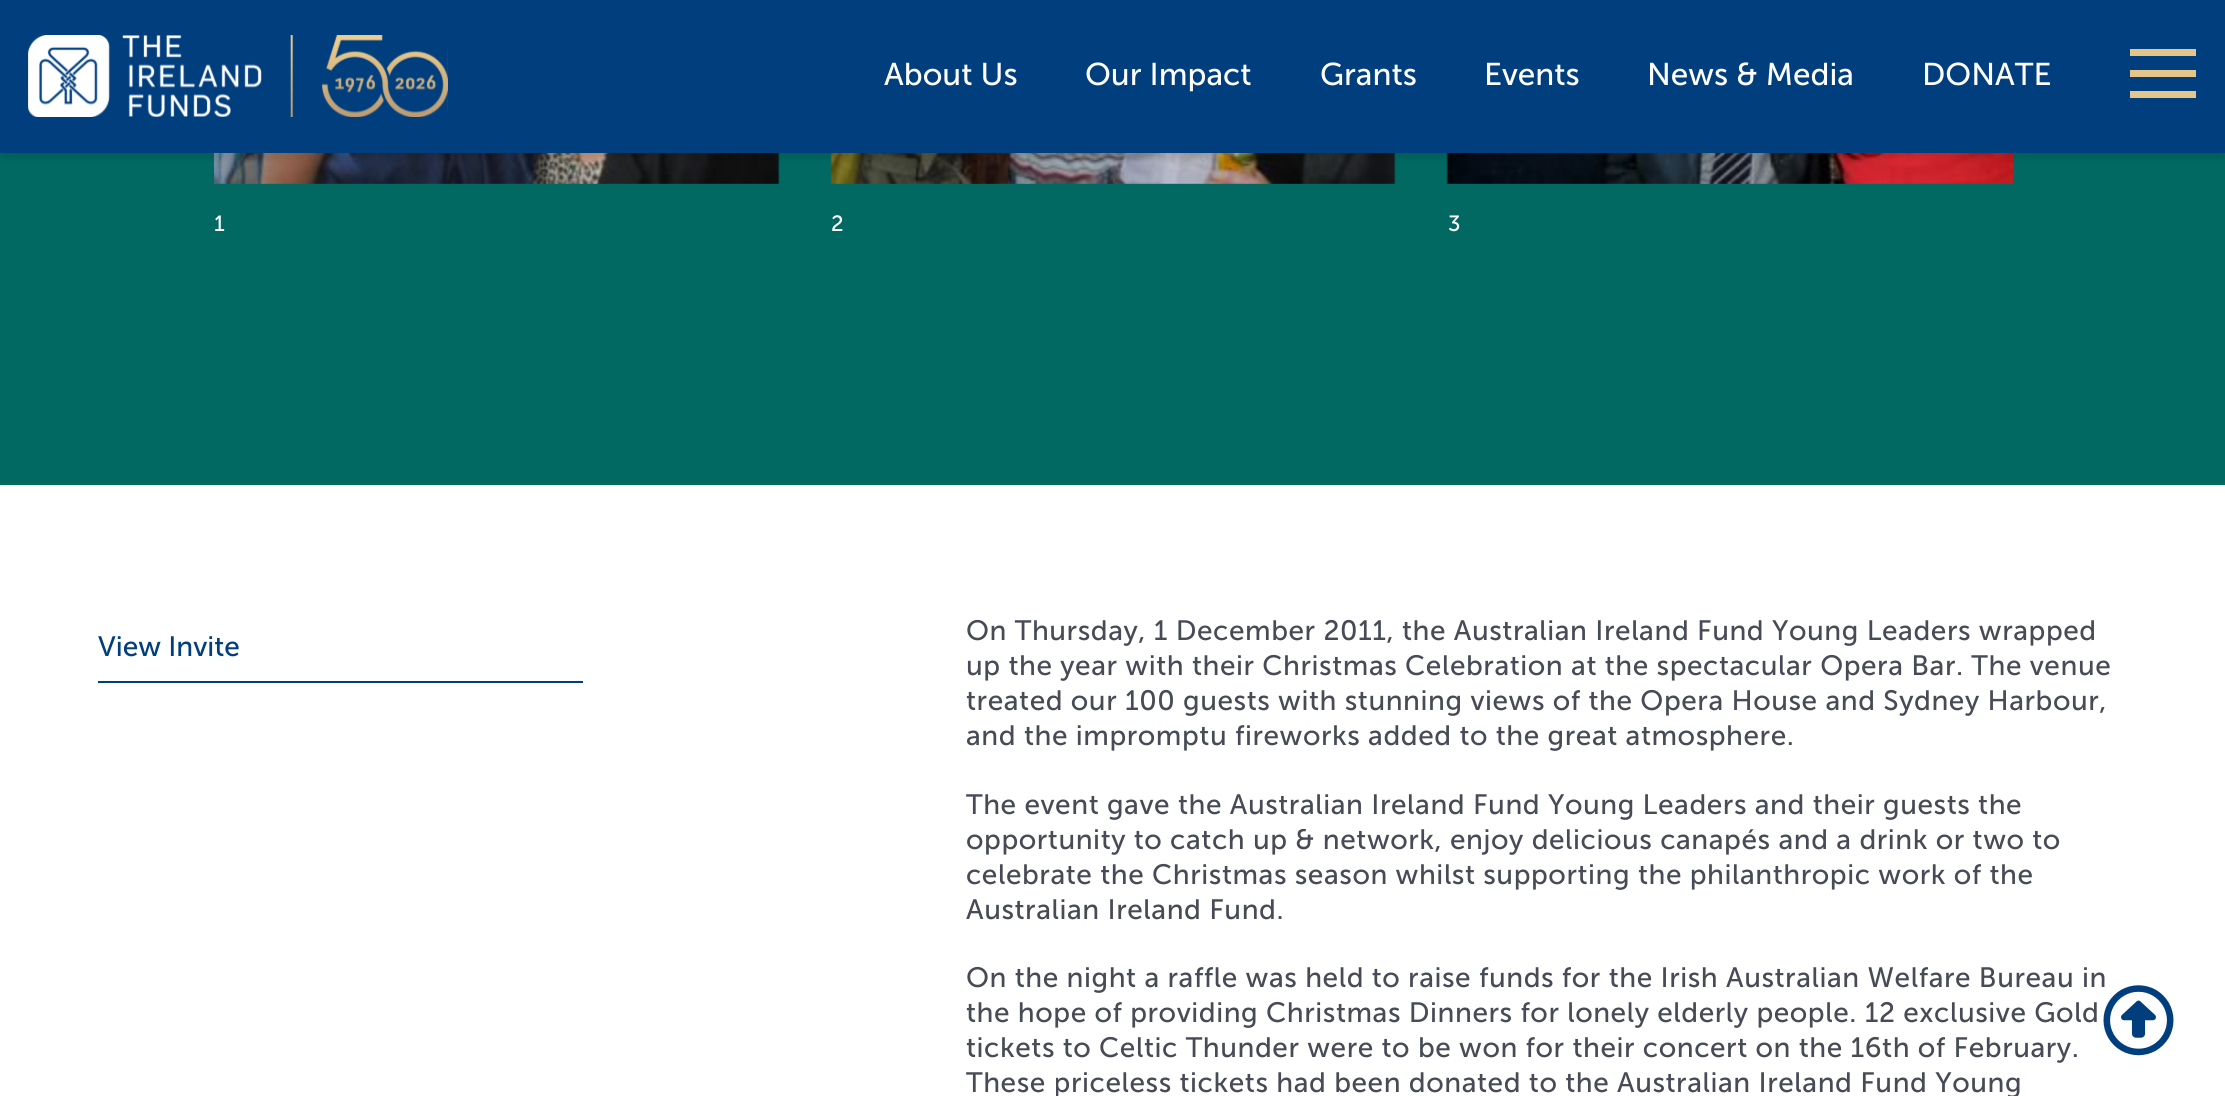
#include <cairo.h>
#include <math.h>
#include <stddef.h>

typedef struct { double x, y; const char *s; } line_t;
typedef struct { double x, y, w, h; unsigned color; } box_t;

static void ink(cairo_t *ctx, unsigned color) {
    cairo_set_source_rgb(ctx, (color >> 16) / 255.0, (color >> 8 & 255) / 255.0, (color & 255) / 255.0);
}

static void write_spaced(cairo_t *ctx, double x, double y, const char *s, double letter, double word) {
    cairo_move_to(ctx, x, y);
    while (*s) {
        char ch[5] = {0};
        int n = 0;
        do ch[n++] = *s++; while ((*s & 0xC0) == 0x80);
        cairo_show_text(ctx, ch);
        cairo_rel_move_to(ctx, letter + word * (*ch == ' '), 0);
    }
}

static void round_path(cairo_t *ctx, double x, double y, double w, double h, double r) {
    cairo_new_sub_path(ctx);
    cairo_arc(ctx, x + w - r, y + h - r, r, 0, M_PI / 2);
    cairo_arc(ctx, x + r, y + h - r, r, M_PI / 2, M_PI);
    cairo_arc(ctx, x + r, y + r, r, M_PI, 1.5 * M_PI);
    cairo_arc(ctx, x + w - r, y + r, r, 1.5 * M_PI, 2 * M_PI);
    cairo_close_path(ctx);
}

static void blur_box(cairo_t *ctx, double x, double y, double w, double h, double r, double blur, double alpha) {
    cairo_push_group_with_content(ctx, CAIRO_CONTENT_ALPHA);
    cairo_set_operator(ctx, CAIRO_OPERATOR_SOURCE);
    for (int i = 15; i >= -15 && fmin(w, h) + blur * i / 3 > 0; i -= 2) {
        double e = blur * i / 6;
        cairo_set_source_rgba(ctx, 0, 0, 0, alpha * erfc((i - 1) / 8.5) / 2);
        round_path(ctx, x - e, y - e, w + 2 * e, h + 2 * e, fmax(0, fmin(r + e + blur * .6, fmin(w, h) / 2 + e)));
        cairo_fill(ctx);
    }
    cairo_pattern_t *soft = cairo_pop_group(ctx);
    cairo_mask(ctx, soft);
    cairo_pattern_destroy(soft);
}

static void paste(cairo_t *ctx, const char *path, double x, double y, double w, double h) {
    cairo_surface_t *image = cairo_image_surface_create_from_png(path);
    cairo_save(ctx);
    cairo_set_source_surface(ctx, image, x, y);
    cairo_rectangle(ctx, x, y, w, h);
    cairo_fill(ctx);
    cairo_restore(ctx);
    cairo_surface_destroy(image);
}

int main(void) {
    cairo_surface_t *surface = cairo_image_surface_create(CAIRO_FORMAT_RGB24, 2225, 1096);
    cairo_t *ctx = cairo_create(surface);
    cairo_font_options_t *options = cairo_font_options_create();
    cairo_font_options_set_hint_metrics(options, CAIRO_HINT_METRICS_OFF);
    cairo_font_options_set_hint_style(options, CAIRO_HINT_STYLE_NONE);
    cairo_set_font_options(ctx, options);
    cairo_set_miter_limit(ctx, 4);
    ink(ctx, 0xFFFFFF);
    cairo_paint(ctx);
    ink(ctx, 0x016962);
    cairo_rectangle(ctx, 0, 153, 2225, 332);
    cairo_fill(ctx);
    paste(ctx, "media/2.png", 214, 153, 566, 31);
    paste(ctx, "media/3.png", 830, 153, 566, 31);
    paste(ctx, "media/4.png", 1446, 153, 567, 31);
    ink(ctx, 0x000000);
    blur_box(ctx, 2, 9, 2222, 149, 0, 4.5, 0.12);
    ink(ctx, 0x003E7E);
    cairo_rectangle(ctx, 0, 0, 2225, 153);
    cairo_fill(ctx);
    paste(ctx, "media/1.png", 28, 35, 420, 82);
    cairo_select_font_face(ctx, "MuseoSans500", CAIRO_FONT_SLANT_NORMAL, CAIRO_FONT_WEIGHT_NORMAL);
    cairo_set_font_size(ctx, 31.5);
    ink(ctx, 0xFFFFFF);
    {
        static const line_t items[] = {
            {884, 85, "About Us"},
            {1085, 85, "Our Impact"},
            {1320, 85, "Grants"},
            {1484, 85, "Events"},
            {1647, 85, "News & Media"},
            {1922, 85, "DONATE"},
        };
        for (size_t i = 0; i < sizeof items / sizeof *items; i++) {
            cairo_move_to(ctx, items[i].x, items[i].y);
            cairo_show_text(ctx, items[i].s);
        }
    }
    {
        static const box_t items[] = {
            {2130, 49, 66, 7, 0xE6C688},
            {2130, 70, 66, 7, 0xE6C688},
            {2130, 91, 66, 7, 0xE6C688},
        };
        for (size_t i = 0; i < sizeof items / sizeof *items; i++) {
            ink(ctx, items[i].color);
            cairo_rectangle(ctx, items[i].x, items[i].y, items[i].w, items[i].h);
            cairo_fill(ctx);
        }
    }
    cairo_set_font_size(ctx, 22);
    ink(ctx, 0xFFFFFF);
    {
        static const line_t items[] = {
            {214, 231, "1"},
            {831, 231, "2"},
            {1448, 231, "3"},
        };
        for (size_t i = 0; i < sizeof items / sizeof *items; i++) {
            cairo_move_to(ctx, items[i].x, items[i].y);
            cairo_show_text(ctx, items[i].s);
        }
    }
    ink(ctx, 0x003E7E);
    cairo_rectangle(ctx, 98, 681, 485, 2);
    cairo_fill(ctx);
    cairo_set_font_size(ctx, 28);
    cairo_move_to(ctx, 98, 656);
    cairo_show_text(ctx, "View Invite");
    ink(ctx, 0x474B55);
    {
        static const line_t items[] = {
            {966, 640, "On Thursday, 1 December 2011, the Australian Ireland Fund Young Leaders wrapped"},
            {966, 675, "up the year with their Christmas Celebration at the spectacular Opera Bar. The venue"},
            {966, 710, "treated our 100 guests with stunning views of the Opera House and Sydney Harbour,"},
            {966, 745, "and the impromptu fireworks added to the great atmosphere."},
            {966, 814, "The event gave the Australian Ireland Fund Young Leaders and their guests the"},
            {966, 849, "opportunity to catch up & network, enjoy delicious canapés and a drink or two to"},
            {966, 884, "celebrate the Christmas season whilst supporting the philanthropic work of the"},
            {966, 919, "Australian Ireland Fund."},
            {966, 987, "On the night a raffle was held to raise funds for the Irish Australian Welfare Bureau in"},
            {966, 1022, "the hope of providing Christmas Dinners for lonely elderly people. 12 exclusive Gold"},
            {966, 1057, "tickets to Celtic Thunder were to be won for their concert on the 16th of February."},
            {966, 1092, "These priceless tickets had been donated to the Australian Ireland Fund Young"},
        };
        for (size_t i = 0; i < sizeof items / sizeof *items; i++) {
            write_spaced(ctx, items[i].x, items[i].y, items[i].s, 0.55, 0);
        }
    }
    paste(ctx, "media/5.png", 2103, 985, 71, 71);
    cairo_surface_write_to_png(surface, "image.png");
    cairo_font_options_destroy(options);
    cairo_destroy(ctx);
    cairo_surface_destroy(surface);
    return 0;
}
